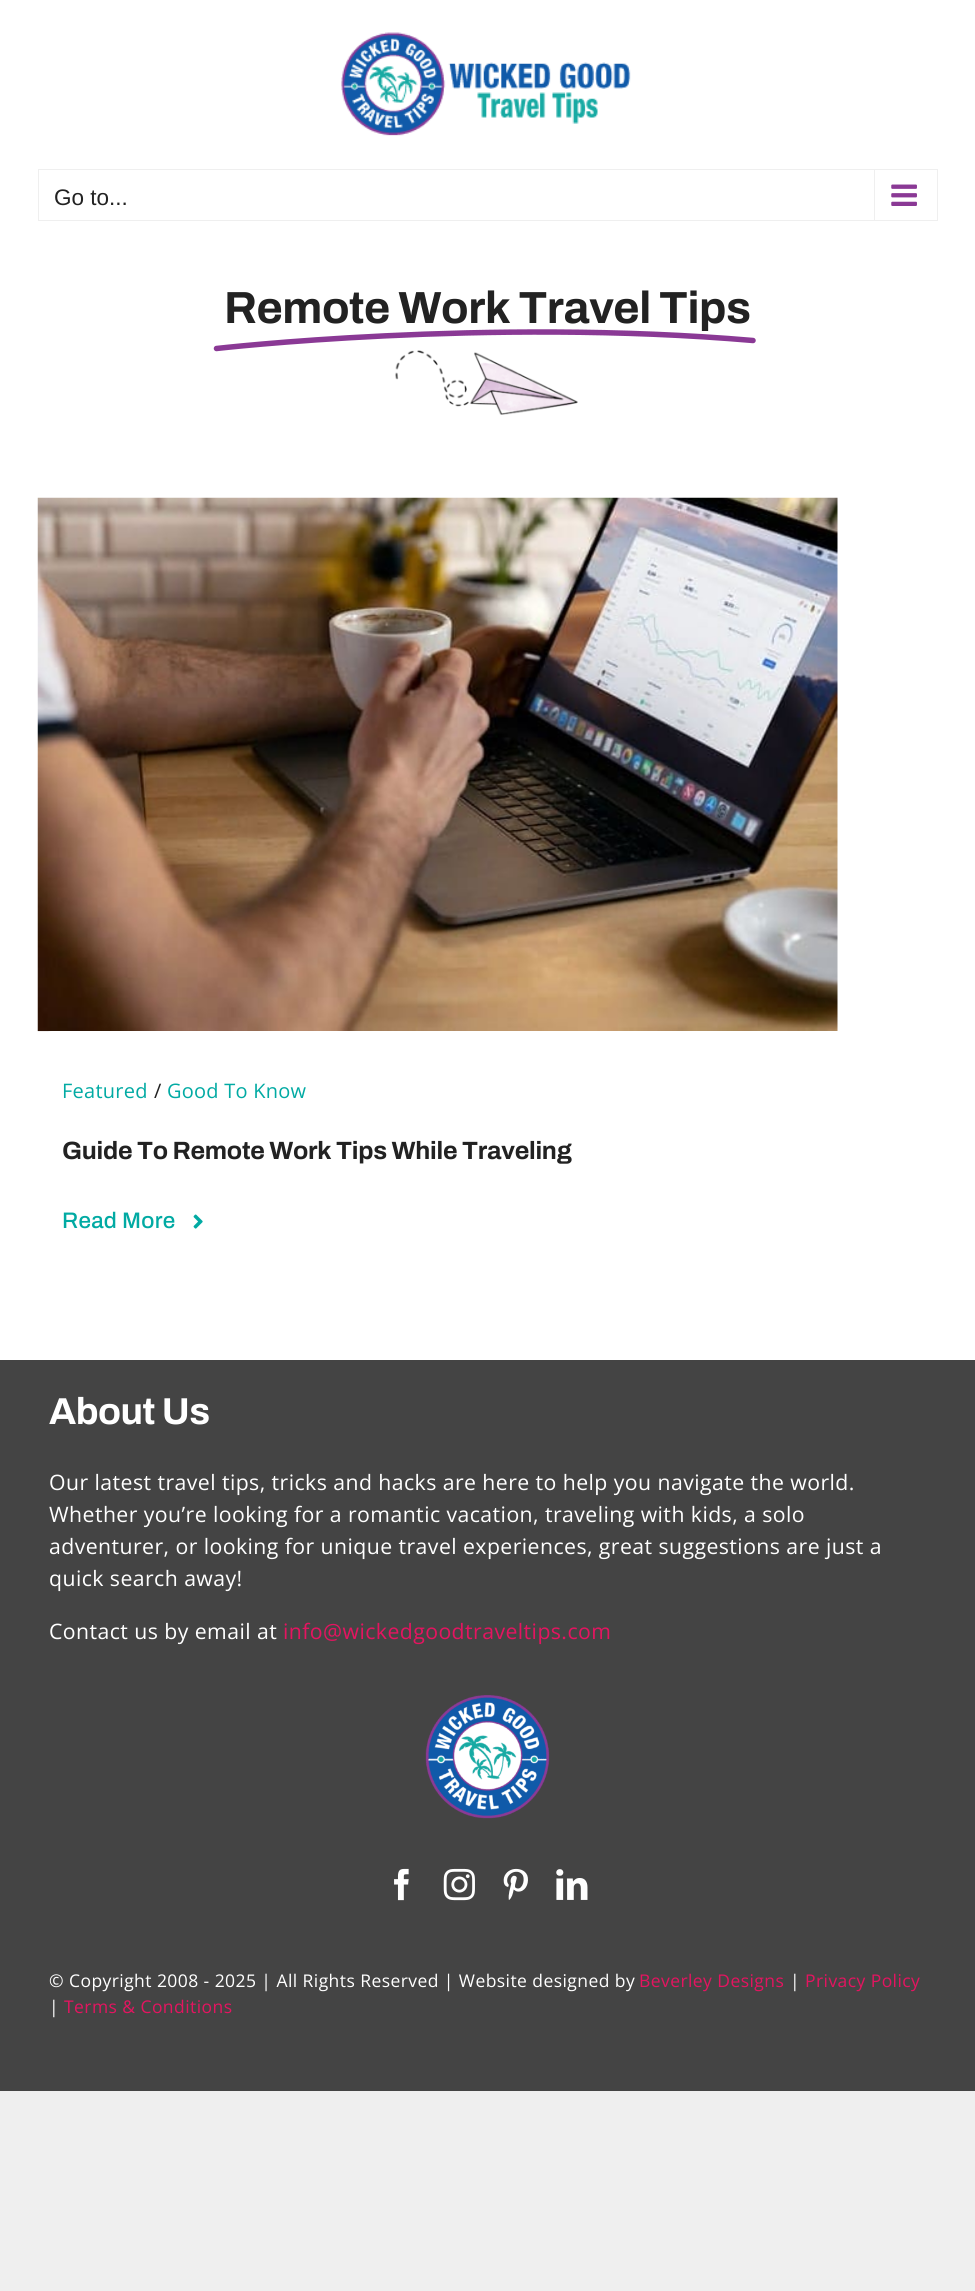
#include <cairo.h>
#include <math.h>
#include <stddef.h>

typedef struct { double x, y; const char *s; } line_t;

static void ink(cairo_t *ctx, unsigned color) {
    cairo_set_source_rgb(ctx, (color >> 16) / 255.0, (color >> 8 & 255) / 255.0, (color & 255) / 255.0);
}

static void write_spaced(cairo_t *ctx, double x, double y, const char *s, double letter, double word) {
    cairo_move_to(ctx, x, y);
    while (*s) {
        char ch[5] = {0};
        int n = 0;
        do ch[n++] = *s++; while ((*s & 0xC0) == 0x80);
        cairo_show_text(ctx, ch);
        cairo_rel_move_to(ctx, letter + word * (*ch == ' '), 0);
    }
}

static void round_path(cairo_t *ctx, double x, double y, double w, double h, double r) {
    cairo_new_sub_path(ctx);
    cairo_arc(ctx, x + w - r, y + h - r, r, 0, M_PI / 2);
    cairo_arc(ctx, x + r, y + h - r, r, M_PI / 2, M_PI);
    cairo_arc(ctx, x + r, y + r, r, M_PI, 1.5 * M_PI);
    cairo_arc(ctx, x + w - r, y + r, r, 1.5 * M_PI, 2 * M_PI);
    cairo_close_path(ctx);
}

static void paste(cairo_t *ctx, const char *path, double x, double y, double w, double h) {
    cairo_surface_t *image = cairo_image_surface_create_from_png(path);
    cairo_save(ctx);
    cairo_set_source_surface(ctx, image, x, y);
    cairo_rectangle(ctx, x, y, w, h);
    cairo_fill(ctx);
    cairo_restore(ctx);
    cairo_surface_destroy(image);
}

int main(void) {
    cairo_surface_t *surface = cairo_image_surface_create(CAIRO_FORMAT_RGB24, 975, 2291);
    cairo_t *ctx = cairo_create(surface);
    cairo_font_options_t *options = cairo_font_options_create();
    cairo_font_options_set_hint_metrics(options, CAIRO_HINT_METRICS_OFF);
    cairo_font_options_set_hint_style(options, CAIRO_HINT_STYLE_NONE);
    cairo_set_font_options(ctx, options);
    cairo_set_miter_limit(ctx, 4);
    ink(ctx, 0xEFEFEF);
    cairo_paint(ctx);
    ink(ctx, 0xFFFFFF);
    cairo_rectangle(ctx, 0, 0, 975, 1360);
    cairo_fill(ctx);
    paste(ctx, "media/1.png", 341, 32, 290, 104);
    cairo_rectangle(ctx, 38.5, 169.5, 899, 51);
    ink(ctx, 0xEFEFEF);
    cairo_set_line_width(ctx, 1);
    cairo_stroke(ctx);
    cairo_select_font_face(ctx, "Liberation Sans", CAIRO_FONT_SLANT_NORMAL, CAIRO_FONT_WEIGHT_NORMAL);
    cairo_set_font_size(ctx, 22.5);
    ink(ctx, 0x222222);
    cairo_move_to(ctx, 54, 205);
    cairo_show_text(ctx, "Go to...");
    ink(ctx, 0xEFEFEF);
    cairo_rectangle(ctx, 874, 170, 1, 50);
    cairo_fill(ctx);
    paste(ctx, "media/2.png", 891, 184, 26, 22);
    cairo_select_font_face(ctx, "Archivo", CAIRO_FONT_SLANT_NORMAL, CAIRO_FONT_WEIGHT_BOLD);
    cairo_set_font_size(ctx, 45);
    ink(ctx, 0x222222);
    write_spaced(ctx, 224, 323, "Remote Work Travel Tips", -0.45, 0);
    cairo_new_path(ctx);
    cairo_move_to(ctx, 216.5, 348.5);
    cairo_curve_to(ctx, 216.5, 348.5, 486, 317.5, 753, 340.5);
    ink(ctx, 0x8A3995);
    cairo_set_line_width(ctx, 5.5);
    cairo_set_line_cap(ctx, CAIRO_LINE_CAP_ROUND);
    cairo_set_line_join(ctx, CAIRO_LINE_JOIN_ROUND);
    cairo_stroke(ctx);
    paste(ctx, "media/3.png", 395, 350, 183, 65);
    paste(ctx, "media/4.png", 37, 497, 801, 535);
    ink(ctx, 0xFFFFFF);
    round_path(ctx, 38, 1031, 900, 229, 15);
    cairo_fill(ctx);
    cairo_select_font_face(ctx, "Open Sans", CAIRO_FONT_SLANT_NORMAL, CAIRO_FONT_WEIGHT_NORMAL);
    cairo_set_font_size(ctx, 20);
    ink(ctx, 0x01AAA3);
    write_spaced(ctx, 62, 1098, "Featured", 0.25, 0);
    ink(ctx, 0x222222);
    write_spaced(ctx, 154, 1098, "/", 0.25, 0);
    ink(ctx, 0x01AAA3);
    write_spaced(ctx, 167, 1098, "Good To Know", 0.25, 0);
    cairo_select_font_face(ctx, "Archivo", CAIRO_FONT_SLANT_NORMAL, CAIRO_FONT_WEIGHT_BOLD);
    cairo_set_font_size(ctx, 25);
    ink(ctx, 0x222222);
    write_spaced(ctx, 62, 1159, "Guide To Remote Work Tips While Traveling", -0.25, 0);
    cairo_select_font_face(ctx, "Archivo Medium", CAIRO_FONT_SLANT_NORMAL, CAIRO_FONT_WEIGHT_NORMAL);
    cairo_set_font_size(ctx, 22.5);
    ink(ctx, 0x01AAA3);
    write_spaced(ctx, 62, 1228, "Read More", 0.25, 0);
    paste(ctx, "media/5.png", 193, 1214, 10, 15);
    ink(ctx, 0x444444);
    cairo_rectangle(ctx, 0, 1360, 975, 731);
    cairo_fill(ctx);
    cairo_select_font_face(ctx, "Archivo", CAIRO_FONT_SLANT_NORMAL, CAIRO_FONT_WEIGHT_BOLD);
    cairo_set_font_size(ctx, 37.5);
    ink(ctx, 0xFFFFFF);
    write_spaced(ctx, 49, 1424, "About Us", -0.5, 0);
    cairo_select_font_face(ctx, "Open Sans", CAIRO_FONT_SLANT_NORMAL, CAIRO_FONT_WEIGHT_NORMAL);
    cairo_set_font_size(ctx, 21.25);
    {
        static const line_t items[] = {
            {49, 1490, "Our latest travel tips, tricks and hacks are here to help you navigate the world."},
            {49, 1522, "Whether you’re looking for a romantic vacation, traveling with kids, a solo"},
            {49, 1554, "adventurer, or looking for unique travel experiences, great suggestions are just a"},
            {49, 1586, "quick search away!"},
            {49, 1639, "Contact us by email at"},
        };
        for (size_t i = 0; i < sizeof items / sizeof *items; i++) {
            write_spaced(ctx, items[i].x, items[i].y, items[i].s, 0.43, 0);
        }
    }
    ink(ctx, 0xE41460);
    write_spaced(ctx, 283, 1639, "info@wickedgoodtraveltips.com", 0.43, 0);
    paste(ctx, "media/6.png", 425, 1695, 125, 124);
    paste(ctx, "media/7.png", 394, 1868, 15, 33);
    paste(ctx, "media/8.png", 443, 1868, 32, 33);
    paste(ctx, "media/9.png", 503, 1868, 25, 32);
    paste(ctx, "media/10.png", 556, 1869, 32, 31);
    cairo_set_font_size(ctx, 17.5);
    ink(ctx, 0xFFFFFF);
    write_spaced(ctx, 49, 1987, "© Copyright 2008 - 2025 | All Rights Reserved | Website designed by", 0.43, 0);
    ink(ctx, 0xE41460);
    write_spaced(ctx, 639, 1987, "Beverley Designs", 0.43, 0);
    ink(ctx, 0xFFFFFF);
    write_spaced(ctx, 790, 1987, "|", 0.43, 0);
    ink(ctx, 0xE41460);
    write_spaced(ctx, 805, 1987, "Privacy Policy", 0.43, 0);
    ink(ctx, 0xFFFFFF);
    write_spaced(ctx, 49, 2013, "|", 0.43, 0);
    ink(ctx, 0xE41460);
    write_spaced(ctx, 64, 2013, "Terms & Conditions", 0.43, 0);
    cairo_surface_write_to_png(surface, "image.png");
    cairo_font_options_destroy(options);
    cairo_destroy(ctx);
    cairo_surface_destroy(surface);
    return 0;
}
